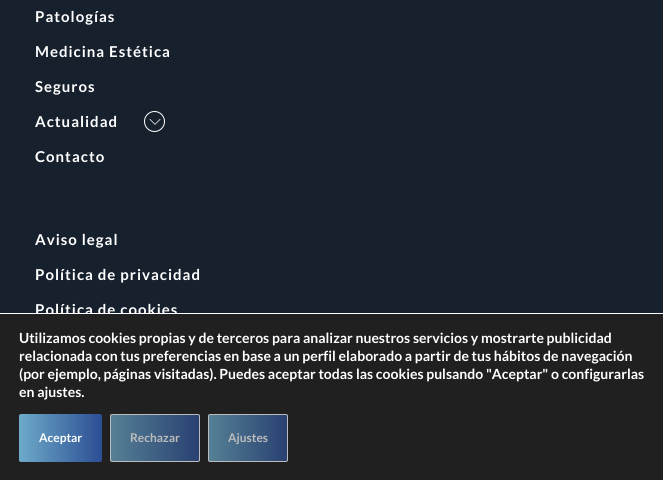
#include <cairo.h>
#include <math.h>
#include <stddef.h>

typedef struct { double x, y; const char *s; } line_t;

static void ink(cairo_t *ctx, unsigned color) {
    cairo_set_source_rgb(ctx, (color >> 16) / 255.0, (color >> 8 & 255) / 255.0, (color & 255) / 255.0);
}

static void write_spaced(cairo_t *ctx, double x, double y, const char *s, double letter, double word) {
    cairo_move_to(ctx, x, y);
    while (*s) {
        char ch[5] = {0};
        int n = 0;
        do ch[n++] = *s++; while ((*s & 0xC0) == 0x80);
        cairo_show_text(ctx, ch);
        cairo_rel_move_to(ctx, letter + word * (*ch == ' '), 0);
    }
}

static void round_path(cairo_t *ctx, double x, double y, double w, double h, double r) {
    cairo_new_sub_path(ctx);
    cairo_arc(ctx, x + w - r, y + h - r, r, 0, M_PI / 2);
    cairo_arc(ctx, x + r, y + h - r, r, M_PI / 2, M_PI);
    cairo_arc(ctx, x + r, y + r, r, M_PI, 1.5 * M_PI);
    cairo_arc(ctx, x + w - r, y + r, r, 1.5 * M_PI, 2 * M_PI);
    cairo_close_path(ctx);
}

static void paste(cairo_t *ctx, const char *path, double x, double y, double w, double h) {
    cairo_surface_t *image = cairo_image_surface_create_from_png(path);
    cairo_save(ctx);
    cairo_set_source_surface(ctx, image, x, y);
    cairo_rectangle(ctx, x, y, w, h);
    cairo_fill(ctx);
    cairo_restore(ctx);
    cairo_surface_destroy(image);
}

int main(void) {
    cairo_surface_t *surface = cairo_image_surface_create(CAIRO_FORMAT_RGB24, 663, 480);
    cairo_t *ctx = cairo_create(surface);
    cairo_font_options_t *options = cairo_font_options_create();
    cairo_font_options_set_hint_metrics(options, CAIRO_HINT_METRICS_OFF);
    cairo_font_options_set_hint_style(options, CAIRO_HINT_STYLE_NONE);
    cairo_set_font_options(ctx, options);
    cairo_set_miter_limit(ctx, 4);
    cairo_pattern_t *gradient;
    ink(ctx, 0x17202D);
    cairo_paint(ctx);
    cairo_select_font_face(ctx, "Lato", CAIRO_FONT_SLANT_NORMAL, CAIRO_FONT_WEIGHT_BOLD);
    cairo_set_font_size(ctx, 15);
    ink(ctx, 0xFFFFFF);
    {
        static const line_t items[] = {
            {35, 22, "Patologías"},
            {35, 57, "Medicina Estética"},
            {35, 92, "Seguros"},
            {35, 127, "Actualidad"},
        };
        for (size_t i = 0; i < sizeof items / sizeof *items; i++) {
            write_spaced(ctx, items[i].x, items[i].y, items[i].s, 1, 0);
        }
    }
    cairo_new_path(ctx);
    cairo_arc(ctx, 154.5, 121.5, 10, 0, 2 * M_PI);
    cairo_set_line_width(ctx, 1);
    cairo_stroke(ctx);
    paste(ctx, "media/1.png", 149, 119, 12, 6);
    {
        static const line_t items[] = {
            {35, 162, "Contacto"},
            {35, 245, "Aviso legal"},
            {35, 280, "Política de privacidad"},
            {35, 315, "Política de cookies"},
        };
        for (size_t i = 0; i < sizeof items / sizeof *items; i++) {
            write_spaced(ctx, items[i].x, items[i].y, items[i].s, 1, 0);
        }
    }
    ink(ctx, 0x202020);
    cairo_rectangle(ctx, 0, 314, 663, 166);
    cairo_fill(ctx);
    ink(ctx, 0xFFFFFF);
    cairo_rectangle(ctx, 0, 313, 663, 1);
    cairo_fill(ctx);
    cairo_set_font_size(ctx, 14);
    {
        static const line_t items[] = {
            {19, 343, "Utilizamos cookies propias y de terceros para analizar nuestros servicios y mostrarte publicidad"},
            {19, 361, "relacionada con tus preferencias en base a un perfil elaborado a partir de tus hábitos de navegación"},
            {19, 379, "(por ejemplo, páginas visitadas). Puedes aceptar todas las cookies pulsando \"Aceptar\" o configurarlas"},
            {19, 397, "en ajustes."},
        };
        for (size_t i = 0; i < sizeof items / sizeof *items; i++) {
            cairo_move_to(ctx, items[i].x, items[i].y);
            cairo_show_text(ctx, items[i].s);
        }
    }
    gradient = cairo_pattern_create_linear(19, 438, 102, 438);
    cairo_pattern_add_color_stop_rgba(gradient, 0, 0.427, 0.667, 0.788, 1);
    cairo_pattern_add_color_stop_rgba(gradient, 1, 0.173, 0.306, 0.58, 1);
    cairo_set_source(ctx, gradient);
    cairo_pattern_destroy(gradient);
    round_path(ctx, 19, 414, 83, 48, 2);
    cairo_fill(ctx);
    cairo_set_font_size(ctx, 12);
    ink(ctx, 0xFFFFFF);
    cairo_move_to(ctx, 39, 442);
    cairo_show_text(ctx, "Aceptar");
    gradient = cairo_pattern_create_linear(110, 438, 200, 438);
    cairo_pattern_add_color_stop_rgba(gradient, 0, 0.337, 0.506, 0.588, 1);
    cairo_pattern_add_color_stop_rgba(gradient, 1, 0.157, 0.251, 0.443, 1);
    cairo_set_source(ctx, gradient);
    cairo_pattern_destroy(gradient);
    round_path(ctx, 110.5, 414.5, 89, 47, 1.5);
    cairo_fill_preserve(ctx);
    ink(ctx, 0xBCBCBC);
    cairo_stroke(ctx);
    cairo_move_to(ctx, 130, 442);
    cairo_show_text(ctx, "Rechazar");
    gradient = cairo_pattern_create_linear(208, 438, 288, 438);
    cairo_pattern_add_color_stop_rgba(gradient, 0, 0.337, 0.506, 0.588, 1);
    cairo_pattern_add_color_stop_rgba(gradient, 1, 0.157, 0.251, 0.443, 1);
    cairo_set_source(ctx, gradient);
    cairo_pattern_destroy(gradient);
    round_path(ctx, 208.5, 414.5, 79, 47, 1.5);
    cairo_fill_preserve(ctx);
    ink(ctx, 0xBCBCBC);
    cairo_stroke(ctx);
    cairo_move_to(ctx, 228, 442);
    cairo_show_text(ctx, "Ajustes");
    cairo_surface_write_to_png(surface, "image.png");
    cairo_font_options_destroy(options);
    cairo_destroy(ctx);
    cairo_surface_destroy(surface);
    return 0;
}
